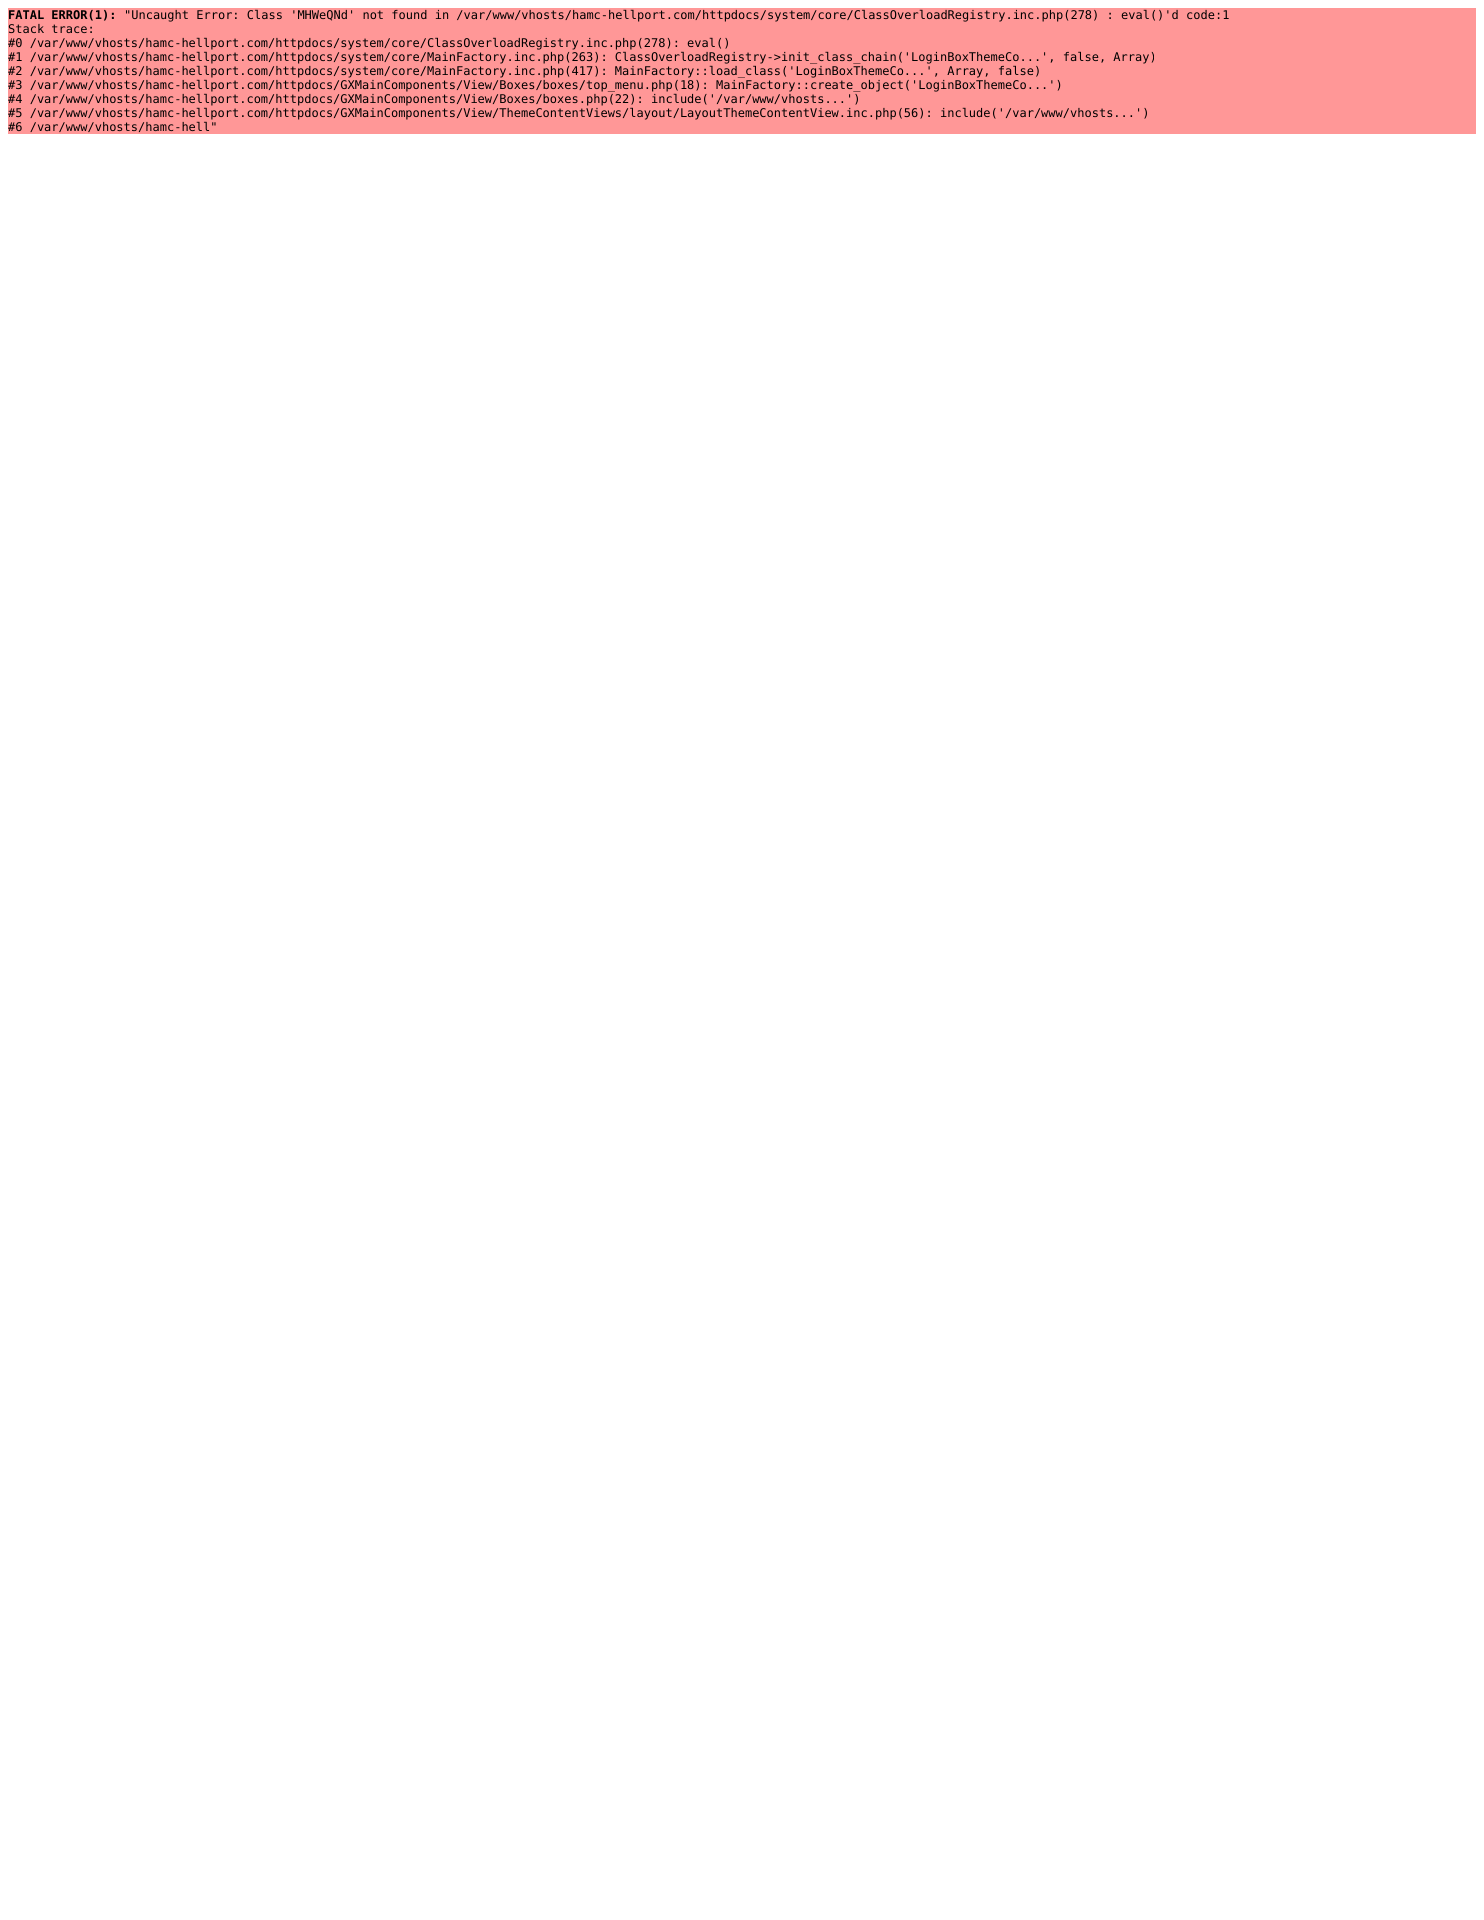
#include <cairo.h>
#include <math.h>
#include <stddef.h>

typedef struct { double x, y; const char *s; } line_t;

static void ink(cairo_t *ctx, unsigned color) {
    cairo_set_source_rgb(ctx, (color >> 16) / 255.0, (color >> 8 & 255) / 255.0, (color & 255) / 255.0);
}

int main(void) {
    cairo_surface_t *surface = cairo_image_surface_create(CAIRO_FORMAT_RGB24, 1484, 1920);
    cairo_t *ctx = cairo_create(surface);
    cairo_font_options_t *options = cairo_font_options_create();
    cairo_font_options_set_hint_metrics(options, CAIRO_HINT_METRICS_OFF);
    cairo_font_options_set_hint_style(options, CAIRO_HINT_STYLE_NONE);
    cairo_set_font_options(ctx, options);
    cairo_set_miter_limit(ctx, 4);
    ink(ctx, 0xFFFFFF);
    cairo_paint(ctx);
    ink(ctx, 0xFF9797);
    cairo_rectangle(ctx, 8, 8, 1468, 126);
    cairo_fill(ctx);
    cairo_select_font_face(ctx, "DejaVu Sans Mono", CAIRO_FONT_SLANT_NORMAL, CAIRO_FONT_WEIGHT_BOLD);
    cairo_set_font_size(ctx, 12);
    ink(ctx, 0x000000);
    cairo_move_to(ctx, 8, 19);
    cairo_show_text(ctx, "FATAL ERROR(1):");
    cairo_select_font_face(ctx, "DejaVu Sans Mono", CAIRO_FONT_SLANT_NORMAL, CAIRO_FONT_WEIGHT_NORMAL);
    {
        static const line_t items[] = {
            {124, 19, "\"Uncaught Error: Class 'MHWeQNd' not found in /var/www/vhosts/hamc-hellport.com/httpdocs/system/core/ClassOverloadRegistry.inc.php(278) : eval()'d code:1"},
            {8, 33, "Stack trace:"},
            {8, 47, "#0 /var/www/vhosts/hamc-hellport.com/httpdocs/system/core/ClassOverloadRegistry.inc.php(278): eval()"},
            {8, 61, "#1 /var/www/vhosts/hamc-hellport.com/httpdocs/system/core/MainFactory.inc.php(263): ClassOverloadRegistry->init_class_chain('LoginBoxThemeCo...', false, Array)"},
            {8, 75, "#2 /var/www/vhosts/hamc-hellport.com/httpdocs/system/core/MainFactory.inc.php(417): MainFactory::load_class('LoginBoxThemeCo...', Array, false)"},
            {8, 89, "#3 /var/www/vhosts/hamc-hellport.com/httpdocs/GXMainComponents/View/Boxes/boxes/top_menu.php(18): MainFactory::create_object('LoginBoxThemeCo...')"},
            {8, 103, "#4 /var/www/vhosts/hamc-hellport.com/httpdocs/GXMainComponents/View/Boxes/boxes.php(22): include('/var/www/vhosts...')"},
            {8, 117, "#5 /var/www/vhosts/hamc-hellport.com/httpdocs/GXMainComponents/View/ThemeContentViews/layout/LayoutThemeContentView.inc.php(56): include('/var/www/vhosts...')"},
            {8, 131, "#6 /var/www/vhosts/hamc-hell\""},
        };
        for (size_t i = 0; i < sizeof items / sizeof *items; i++) {
            cairo_move_to(ctx, items[i].x, items[i].y);
            cairo_show_text(ctx, items[i].s);
        }
    }
    cairo_surface_write_to_png(surface, "image.png");
    cairo_font_options_destroy(options);
    cairo_destroy(ctx);
    cairo_surface_destroy(surface);
    return 0;
}
